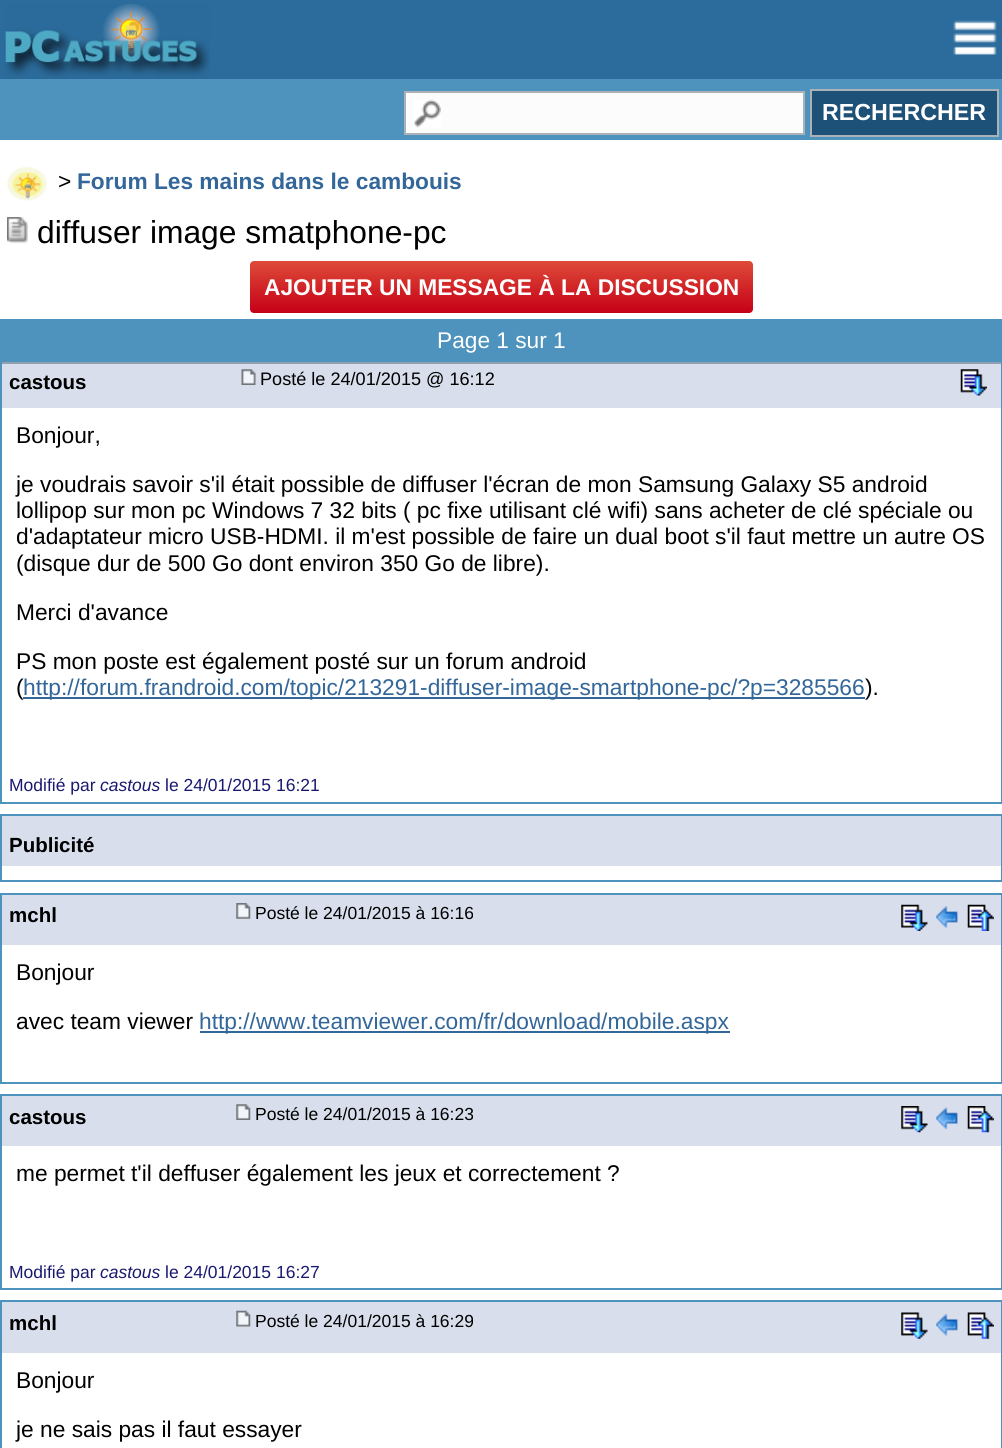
#include <cairo.h>
#include <math.h>
#include <stddef.h>

typedef struct { double x, y; const char *s; } line_t;
typedef struct { double x, y, w, h; unsigned color; } box_t;

static void ink(cairo_t *ctx, unsigned color) {
    cairo_set_source_rgb(ctx, (color >> 16) / 255.0, (color >> 8 & 255) / 255.0, (color & 255) / 255.0);
}

static void round_path(cairo_t *ctx, double x, double y, double w, double h, double r) {
    cairo_new_sub_path(ctx);
    cairo_arc(ctx, x + w - r, y + h - r, r, 0, M_PI / 2);
    cairo_arc(ctx, x + r, y + h - r, r, M_PI / 2, M_PI);
    cairo_arc(ctx, x + r, y + r, r, M_PI, 1.5 * M_PI);
    cairo_arc(ctx, x + w - r, y + r, r, 1.5 * M_PI, 2 * M_PI);
    cairo_close_path(ctx);
}

static void paste(cairo_t *ctx, const char *path, double x, double y, double w, double h) {
    cairo_surface_t *image = cairo_image_surface_create_from_png(path);
    cairo_save(ctx);
    cairo_set_source_surface(ctx, image, x, y);
    cairo_rectangle(ctx, x, y, w, h);
    cairo_fill(ctx);
    cairo_restore(ctx);
    cairo_surface_destroy(image);
}

int main(void) {
    cairo_surface_t *surface = cairo_image_surface_create(CAIRO_FORMAT_RGB24, 1002, 1448);
    cairo_t *ctx = cairo_create(surface);
    cairo_font_options_t *options = cairo_font_options_create();
    cairo_font_options_set_hint_metrics(options, CAIRO_HINT_METRICS_OFF);
    cairo_font_options_set_hint_style(options, CAIRO_HINT_STYLE_NONE);
    cairo_set_font_options(ctx, options);
    cairo_set_miter_limit(ctx, 4);
    cairo_pattern_t *gradient;
    ink(ctx, 0xFFFFFF);
    cairo_paint(ctx);
    ink(ctx, 0x2C6C9D);
    cairo_rectangle(ctx, 0, 0, 1002, 79);
    cairo_fill(ctx);
    paste(ctx, "media/1.png", 4, 3, 206, 76);
    paste(ctx, "media/2.png", 953, 20, 44, 35);
    ink(ctx, 0x4E93BD);
    cairo_rectangle(ctx, 0, 79, 1002, 61);
    cairo_fill(ctx);
    ink(ctx, 0xFCFCFC);
    cairo_rectangle(ctx, 406, 93, 397, 40);
    cairo_fill(ctx);
    paste(ctx, "media/3.png", 414, 99, 27, 29);
    cairo_rectangle(ctx, 405, 92, 399, 42);
    ink(ctx, 0xACB1B7);
    cairo_stroke(ctx);
    ink(ctx, 0x1E5178);
    cairo_rectangle(ctx, 811, 90, 187, 46);
    cairo_fill_preserve(ctx);
    ink(ctx, 0xACB1B7);
    cairo_stroke(ctx);
    cairo_select_font_face(ctx, "Liberation Sans", CAIRO_FONT_SLANT_NORMAL, CAIRO_FONT_WEIGHT_BOLD);
    cairo_set_font_size(ctx, 23.25);
    ink(ctx, 0xFFFFFF);
    cairo_move_to(ctx, 822, 120);
    cairo_show_text(ctx, "RECHERCHER");
    paste(ctx, "media/4.png", 7, 167, 40, 34);
    cairo_select_font_face(ctx, "Liberation Sans", CAIRO_FONT_SLANT_NORMAL, CAIRO_FONT_WEIGHT_NORMAL);
    cairo_set_font_size(ctx, 22.7);
    ink(ctx, 0x000000);
    cairo_move_to(ctx, 58, 189);
    cairo_show_text(ctx, ">");
    cairo_select_font_face(ctx, "Liberation Sans", CAIRO_FONT_SLANT_NORMAL, CAIRO_FONT_WEIGHT_BOLD);
    ink(ctx, 0x336699);
    cairo_move_to(ctx, 77, 189);
    cairo_show_text(ctx, "Forum Les mains dans le cambouis");
    paste(ctx, "media/5.png", 7, 217, 21, 27);
    cairo_select_font_face(ctx, "Liberation Sans", CAIRO_FONT_SLANT_NORMAL, CAIRO_FONT_WEIGHT_NORMAL);
    cairo_set_font_size(ctx, 31.75);
    ink(ctx, 0x000000);
    cairo_move_to(ctx, 37, 243);
    cairo_show_text(ctx, "diffuser image smatphone-pc");
    gradient = cairo_pattern_create_linear(501, 261, 501, 313);
    cairo_pattern_add_color_stop_rgba(gradient, 0, 0.867, 0.294, 0.224, 1);
    cairo_pattern_add_color_stop_rgba(gradient, 1, 0.776, 0, 0.09, 1);
    cairo_set_source(ctx, gradient);
    cairo_pattern_destroy(gradient);
    round_path(ctx, 250, 261, 503, 52, 4);
    cairo_fill(ctx);
    cairo_select_font_face(ctx, "Liberation Sans", CAIRO_FONT_SLANT_NORMAL, CAIRO_FONT_WEIGHT_BOLD);
    cairo_set_font_size(ctx, 22.75);
    ink(ctx, 0xFFFFFF);
    cairo_move_to(ctx, 264, 295);
    cairo_show_text(ctx, "AJOUTER UN MESSAGE À LA DISCUSSION");
    ink(ctx, 0x4E93BD);
    cairo_rectangle(ctx, 0, 319, 1002, 43);
    cairo_fill(ctx);
    cairo_select_font_face(ctx, "Liberation Sans", CAIRO_FONT_SLANT_NORMAL, CAIRO_FONT_WEIGHT_NORMAL);
    cairo_set_font_size(ctx, 22.7);
    ink(ctx, 0xFFFFFF);
    cairo_move_to(ctx, 437, 348);
    cairo_show_text(ctx, "Page 1 sur 1");
    {
        static const box_t items[] = {
            {2, 364, 999, 44, 0xD8DEEB},
            {0, 362, 1002, 2, 0x90A0B0},
            {1001, 362, 1, 441, 0x4E93BD},
            {0, 362, 2, 46, 0x4E93BD},
        };
        for (size_t i = 0; i < sizeof items / sizeof *items; i++) {
            ink(ctx, items[i].color);
            cairo_rectangle(ctx, items[i].x, items[i].y, items[i].w, items[i].h);
            cairo_fill(ctx);
        }
    }
    cairo_select_font_face(ctx, "Liberation Sans", CAIRO_FONT_SLANT_NORMAL, CAIRO_FONT_WEIGHT_BOLD);
    cairo_set_font_size(ctx, 20.5);
    ink(ctx, 0x000000);
    cairo_move_to(ctx, 9, 389);
    cairo_show_text(ctx, "castous");
    paste(ctx, "media/6.png", 241, 369, 15, 16);
    cairo_select_font_face(ctx, "Liberation Sans", CAIRO_FONT_SLANT_NORMAL, CAIRO_FONT_WEIGHT_NORMAL);
    cairo_set_font_size(ctx, 18.1);
    cairo_move_to(ctx, 260, 385);
    cairo_show_text(ctx, "Posté le 24/01/2015 @ 16:12");
    paste(ctx, "media/7.png", 960, 369, 27, 27);
    ink(ctx, 0x4E93BD);
    cairo_rectangle(ctx, 0, 408, 2, 396);
    cairo_fill(ctx);
    cairo_rectangle(ctx, 2, 802, 1000, 2);
    cairo_fill(ctx);
    cairo_set_font_size(ctx, 22.75);
    ink(ctx, 0x000000);
    {
        static const line_t items[] = {
            {16, 443, "Bonjour,"},
            {16, 492, "je voudrais savoir s'il était possible de diffuser l'écran de mon Samsung Galaxy S5 android"},
            {16, 518, "lollipop sur mon pc Windows 7 32 bits ( pc fixe utilisant clé wifi) sans acheter de clé spéciale ou"},
            {16, 544, "d'adaptateur micro USB-HDMI. il m'est possible de faire un dual boot s'il faut mettre un autre OS"},
            {16, 571, "(disque dur de 500 Go dont environ 350 Go de libre)."},
            {16, 620, "Merci d'avance"},
            {16, 669, "PS mon poste est également posté sur un forum android"},
            {16, 695, "("},
        };
        for (size_t i = 0; i < sizeof items / sizeof *items; i++) {
            cairo_move_to(ctx, items[i].x, items[i].y);
            cairo_show_text(ctx, items[i].s);
        }
    }
    ink(ctx, 0x336699);
    cairo_rectangle(ctx, 23, 697, 842, 2);
    cairo_fill(ctx);
    cairo_move_to(ctx, 23, 695);
    cairo_show_text(ctx, "http://forum.frandroid.com/topic/213291-diffuser-image-smartphone-pc/?p=3285566");
    ink(ctx, 0x000000);
    cairo_move_to(ctx, 865, 695);
    cairo_show_text(ctx, ").");
    cairo_set_font_size(ctx, 17.5);
    ink(ctx, 0x191970);
    cairo_move_to(ctx, 9, 791);
    cairo_show_text(ctx, "Modifié par");
    cairo_select_font_face(ctx, "Liberation Sans", CAIRO_FONT_SLANT_ITALIC, CAIRO_FONT_WEIGHT_NORMAL);
    cairo_move_to(ctx, 100, 791);
    cairo_show_text(ctx, "castous");
    cairo_select_font_face(ctx, "Liberation Sans", CAIRO_FONT_SLANT_NORMAL, CAIRO_FONT_WEIGHT_NORMAL);
    cairo_move_to(ctx, 165, 791);
    cairo_show_text(ctx, "le 24/01/2015 16:21");
    {
        static const box_t items[] = {
            {2, 816, 999, 50, 0xD8DEEB},
            {0, 814, 1002, 2, 0x4E93BD},
            {1001, 814, 1, 68, 0x4E93BD},
            {0, 814, 2, 68, 0x4E93BD},
        };
        for (size_t i = 0; i < sizeof items / sizeof *items; i++) {
            ink(ctx, items[i].color);
            cairo_rectangle(ctx, items[i].x, items[i].y, items[i].w, items[i].h);
            cairo_fill(ctx);
        }
    }
    cairo_select_font_face(ctx, "Liberation Sans", CAIRO_FONT_SLANT_NORMAL, CAIRO_FONT_WEIGHT_BOLD);
    cairo_set_font_size(ctx, 20.5);
    ink(ctx, 0x000000);
    cairo_move_to(ctx, 9, 852);
    cairo_show_text(ctx, "Publicité");
    {
        static const box_t items[] = {
            {2, 880, 1000, 2, 0x4E93BD},
            {2, 895, 999, 50, 0xD8DEEB},
            {0, 893, 1002, 2, 0x4E93BD},
            {1001, 893, 1, 190, 0x4E93BD},
            {0, 893, 2, 52, 0x4E93BD},
        };
        for (size_t i = 0; i < sizeof items / sizeof *items; i++) {
            ink(ctx, items[i].color);
            cairo_rectangle(ctx, items[i].x, items[i].y, items[i].w, items[i].h);
            cairo_fill(ctx);
        }
    }
    ink(ctx, 0x000000);
    cairo_move_to(ctx, 9, 922);
    cairo_show_text(ctx, "mchl");
    paste(ctx, "media/8.png", 236, 903, 15, 16);
    cairo_select_font_face(ctx, "Liberation Sans", CAIRO_FONT_SLANT_NORMAL, CAIRO_FONT_WEIGHT_NORMAL);
    cairo_set_font_size(ctx, 17.5);
    cairo_move_to(ctx, 255, 919);
    cairo_show_text(ctx, "Posté le 24/01/2015 à 16:16");
    paste(ctx, "media/9.png", 901, 904, 27, 27);
    paste(ctx, "media/10.png", 934, 906, 24, 22);
    paste(ctx, "media/11.png", 967, 904, 27, 27);
    ink(ctx, 0x4E93BD);
    cairo_rectangle(ctx, 0, 945, 2, 139);
    cairo_fill(ctx);
    cairo_rectangle(ctx, 2, 1082, 1000, 2);
    cairo_fill(ctx);
    cairo_set_font_size(ctx, 22.75);
    ink(ctx, 0x000000);
    cairo_move_to(ctx, 16, 980);
    cairo_show_text(ctx, "Bonjour");
    cairo_move_to(ctx, 16, 1029);
    cairo_show_text(ctx, "avec team viewer");
    ink(ctx, 0x336699);
    cairo_rectangle(ctx, 200, 1031, 530, 2);
    cairo_fill(ctx);
    cairo_move_to(ctx, 199, 1029);
    cairo_show_text(ctx, "http://www.teamviewer.com/fr/download/mobile.aspx");
    {
        static const box_t items[] = {
            {2, 1096, 999, 50, 0xD8DEEB},
            {0, 1094, 1002, 2, 0x4E93BD},
            {1001, 1094, 1, 196, 0x4E93BD},
            {0, 1094, 2, 196, 0x4E93BD},
        };
        for (size_t i = 0; i < sizeof items / sizeof *items; i++) {
            ink(ctx, items[i].color);
            cairo_rectangle(ctx, items[i].x, items[i].y, items[i].w, items[i].h);
            cairo_fill(ctx);
        }
    }
    cairo_select_font_face(ctx, "Liberation Sans", CAIRO_FONT_SLANT_NORMAL, CAIRO_FONT_WEIGHT_BOLD);
    cairo_set_font_size(ctx, 20.5);
    ink(ctx, 0x000000);
    cairo_move_to(ctx, 9, 1124);
    cairo_show_text(ctx, "castous");
    paste(ctx, "media/12.png", 236, 1104, 15, 16);
    cairo_select_font_face(ctx, "Liberation Sans", CAIRO_FONT_SLANT_NORMAL, CAIRO_FONT_WEIGHT_NORMAL);
    cairo_set_font_size(ctx, 17.5);
    cairo_move_to(ctx, 255, 1120);
    cairo_show_text(ctx, "Posté le 24/01/2015 à 16:23");
    paste(ctx, "media/13.png", 901, 1106, 27, 27);
    paste(ctx, "media/14.png", 934, 1107, 24, 23);
    paste(ctx, "media/15.png", 967, 1106, 27, 27);
    ink(ctx, 0x4E93BD);
    cairo_rectangle(ctx, 2, 1288, 1000, 2);
    cairo_fill(ctx);
    cairo_set_font_size(ctx, 22.75);
    ink(ctx, 0x000000);
    cairo_move_to(ctx, 16, 1181);
    cairo_show_text(ctx, "me permet t'il deffuser également les jeux et correctement ?");
    cairo_set_font_size(ctx, 17.5);
    ink(ctx, 0x191970);
    cairo_move_to(ctx, 9, 1278);
    cairo_show_text(ctx, "Modifié par");
    cairo_select_font_face(ctx, "Liberation Sans", CAIRO_FONT_SLANT_ITALIC, CAIRO_FONT_WEIGHT_NORMAL);
    cairo_move_to(ctx, 100, 1278);
    cairo_show_text(ctx, "castous");
    cairo_select_font_face(ctx, "Liberation Sans", CAIRO_FONT_SLANT_NORMAL, CAIRO_FONT_WEIGHT_NORMAL);
    cairo_move_to(ctx, 165, 1278);
    cairo_show_text(ctx, "le 24/01/2015 16:27");
    {
        static const box_t items[] = {
            {2, 1302, 999, 51, 0xD8DEEB},
            {0, 1300, 1002, 2, 0x4E93BD},
            {1001, 1300, 1, 148, 0x4E93BD},
            {0, 1300, 2, 148, 0x4E93BD},
        };
        for (size_t i = 0; i < sizeof items / sizeof *items; i++) {
            ink(ctx, items[i].color);
            cairo_rectangle(ctx, items[i].x, items[i].y, items[i].w, items[i].h);
            cairo_fill(ctx);
        }
    }
    cairo_select_font_face(ctx, "Liberation Sans", CAIRO_FONT_SLANT_NORMAL, CAIRO_FONT_WEIGHT_BOLD);
    cairo_set_font_size(ctx, 20.5);
    ink(ctx, 0x000000);
    cairo_move_to(ctx, 9, 1330);
    cairo_show_text(ctx, "mchl");
    paste(ctx, "media/16.png", 236, 1310, 15, 17);
    cairo_select_font_face(ctx, "Liberation Sans", CAIRO_FONT_SLANT_NORMAL, CAIRO_FONT_WEIGHT_NORMAL);
    cairo_set_font_size(ctx, 17.5);
    cairo_move_to(ctx, 255, 1327);
    cairo_show_text(ctx, "Posté le 24/01/2015 à 16:29");
    paste(ctx, "media/17.png", 901, 1312, 27, 27);
    paste(ctx, "media/18.png", 934, 1313, 24, 23);
    paste(ctx, "media/19.png", 967, 1312, 27, 27);
    cairo_set_font_size(ctx, 22.75);
    cairo_move_to(ctx, 16, 1388);
    cairo_show_text(ctx, "Bonjour");
    cairo_move_to(ctx, 16, 1437);
    cairo_show_text(ctx, "je ne sais pas il faut essayer");
    cairo_surface_write_to_png(surface, "image.png");
    cairo_font_options_destroy(options);
    cairo_destroy(ctx);
    cairo_surface_destroy(surface);
    return 0;
}
